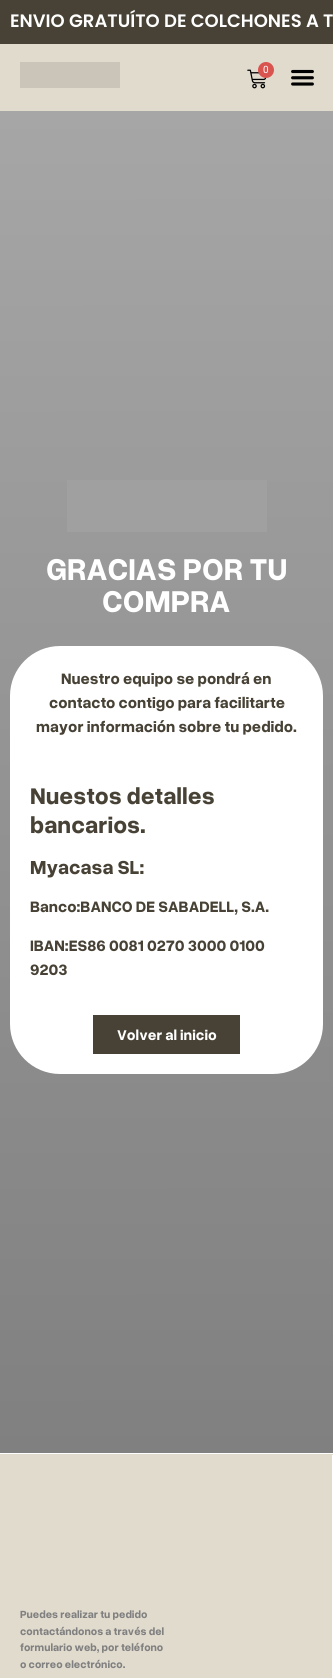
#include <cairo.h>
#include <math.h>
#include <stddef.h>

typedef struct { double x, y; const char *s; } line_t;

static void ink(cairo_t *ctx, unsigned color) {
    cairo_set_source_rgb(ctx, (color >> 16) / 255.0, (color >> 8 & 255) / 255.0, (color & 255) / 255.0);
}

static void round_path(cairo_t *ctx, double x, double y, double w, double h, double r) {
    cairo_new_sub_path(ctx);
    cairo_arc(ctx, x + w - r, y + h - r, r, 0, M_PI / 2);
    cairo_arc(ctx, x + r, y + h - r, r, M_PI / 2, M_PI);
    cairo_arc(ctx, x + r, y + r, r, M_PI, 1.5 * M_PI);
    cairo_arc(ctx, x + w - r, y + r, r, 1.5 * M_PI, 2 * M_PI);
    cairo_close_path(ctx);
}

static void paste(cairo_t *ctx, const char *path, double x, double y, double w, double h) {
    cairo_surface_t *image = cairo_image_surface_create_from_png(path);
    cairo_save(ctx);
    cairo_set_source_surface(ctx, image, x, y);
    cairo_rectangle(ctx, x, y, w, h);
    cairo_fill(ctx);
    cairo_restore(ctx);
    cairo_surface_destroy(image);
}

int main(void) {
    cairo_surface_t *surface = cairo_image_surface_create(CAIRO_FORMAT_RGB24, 333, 1678);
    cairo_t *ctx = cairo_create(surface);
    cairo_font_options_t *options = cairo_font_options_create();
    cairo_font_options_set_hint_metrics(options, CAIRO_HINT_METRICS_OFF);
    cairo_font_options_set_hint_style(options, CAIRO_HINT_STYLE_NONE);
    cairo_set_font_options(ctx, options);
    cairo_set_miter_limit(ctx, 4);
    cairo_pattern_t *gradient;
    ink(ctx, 0xFFFFFF);
    cairo_paint(ctx);
    ink(ctx, 0x474235);
    cairo_rectangle(ctx, 0, 0, 333, 44);
    cairo_fill(ctx);
    cairo_select_font_face(ctx, "Poppins SemiBold", CAIRO_FONT_SLANT_NORMAL, CAIRO_FONT_WEIGHT_NORMAL);
    cairo_set_font_size(ctx, 18);
    ink(ctx, 0xFFFFFF);
    cairo_move_to(ctx, 10, 27);
    cairo_show_text(ctx, "ENVIO GRATUÍTO DE COLCHONES A T");
    ink(ctx, 0xE1DBCE);
    cairo_rectangle(ctx, 0, 44, 333, 67);
    cairo_fill(ctx);
    ink(ctx, 0xCBC5B9);
    cairo_rectangle(ctx, 20, 62, 100, 26);
    cairo_fill(ctx);
    paste(ctx, "media/1.png", 247, 69, 20, 20);
    ink(ctx, 0xD9534F);
    cairo_arc(ctx, 266, 70, 8, 0, 2 * M_PI);
    cairo_fill(ctx);
    cairo_select_font_face(ctx, "Roboto", CAIRO_FONT_SLANT_NORMAL, CAIRO_FONT_WEIGHT_NORMAL);
    cairo_set_font_size(ctx, 10);
    ink(ctx, 0xFFFFFF);
    cairo_move_to(ctx, 263, 73);
    cairo_show_text(ctx, "0");
    paste(ctx, "media/2.png", 291, 69, 23, 17);
    gradient = cairo_pattern_create_linear(166, 111, 167, 1453);
    cairo_pattern_add_color_stop_rgba(gradient, 0, 0.651, 0.651, 0.651, 1);
    cairo_pattern_add_color_stop_rgba(gradient, 1, 0.502, 0.502, 0.502, 1);
    cairo_set_source(ctx, gradient);
    cairo_pattern_destroy(gradient);
    cairo_rectangle(ctx, 0, 111, 333, 1342);
    cairo_fill(ctx);
    ink(ctx, 0xA0A0A1);
    cairo_rectangle(ctx, 67, 480, 200, 52);
    cairo_fill(ctx);
    cairo_select_font_face(ctx, "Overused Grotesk", CAIRO_FONT_SLANT_NORMAL, CAIRO_FONT_WEIGHT_BOLD);
    cairo_set_font_size(ctx, 32);
    ink(ctx, 0xFFFFFF);
    cairo_move_to(ctx, 46, 580);
    cairo_show_text(ctx, "GRACIAS POR TU");
    cairo_move_to(ctx, 102, 612);
    cairo_show_text(ctx, "COMPRA");
    round_path(ctx, 10, 646, 313, 428, 50);
    cairo_fill(ctx);
    cairo_set_font_size(ctx, 16);
    ink(ctx, 0x474235);
    {
        static const line_t items[] = {
            {61, 684, "Nuestro equipo se pondrá en"},
            {49, 708, "contacto contigo para facilitarte"},
            {36, 732, "mayor información sobre tu pedido."},
        };
        for (size_t i = 0; i < sizeof items / sizeof *items; i++) {
            cairo_move_to(ctx, items[i].x, items[i].y);
            cairo_show_text(ctx, items[i].s);
        }
    }
    cairo_set_font_size(ctx, 24);
    cairo_move_to(ctx, 30, 804);
    cairo_show_text(ctx, "Nuestos detalles");
    cairo_move_to(ctx, 30, 833);
    cairo_show_text(ctx, "bancarios.");
    cairo_set_font_size(ctx, 20);
    cairo_move_to(ctx, 30, 874);
    cairo_show_text(ctx, "Myacasa SL:");
    cairo_set_font_size(ctx, 16);
    {
        static const line_t items[] = {
            {30, 912, "Banco:BANCO DE SABADELL, S.A."},
            {30, 951, "IBAN:ES86 0081 0270 3000 0100"},
            {30, 975, "9203"},
        };
        for (size_t i = 0; i < sizeof items / sizeof *items; i++) {
            cairo_move_to(ctx, items[i].x, items[i].y);
            cairo_show_text(ctx, items[i].s);
        }
    }
    cairo_rectangle(ctx, 93, 1015, 147, 39);
    cairo_fill(ctx);
    cairo_set_font_size(ctx, 15);
    ink(ctx, 0xFFFFFF);
    cairo_move_to(ctx, 117, 1040);
    cairo_show_text(ctx, "Volver al inicio");
    ink(ctx, 0xE1DBCE);
    cairo_rectangle(ctx, 0, 1454, 333, 224);
    cairo_fill(ctx);
    ink(ctx, 0xFFFFFF);
    cairo_rectangle(ctx, 332, 1455, 1, 223);
    cairo_fill(ctx);
    cairo_set_font_size(ctx, 11);
    ink(ctx, 0x808080);
    {
        static const line_t items[] = {
            {20, 1618, "Puedes realizar tu pedido"},
            {20, 1635, "contactándonos a través del"},
            {20, 1651, "formulario web, por teléfono"},
            {20, 1668, "o correo electrónico."},
        };
        for (size_t i = 0; i < sizeof items / sizeof *items; i++) {
            cairo_move_to(ctx, items[i].x, items[i].y);
            cairo_show_text(ctx, items[i].s);
        }
    }
    cairo_surface_write_to_png(surface, "image.png");
    cairo_font_options_destroy(options);
    cairo_destroy(ctx);
    cairo_surface_destroy(surface);
    return 0;
}
